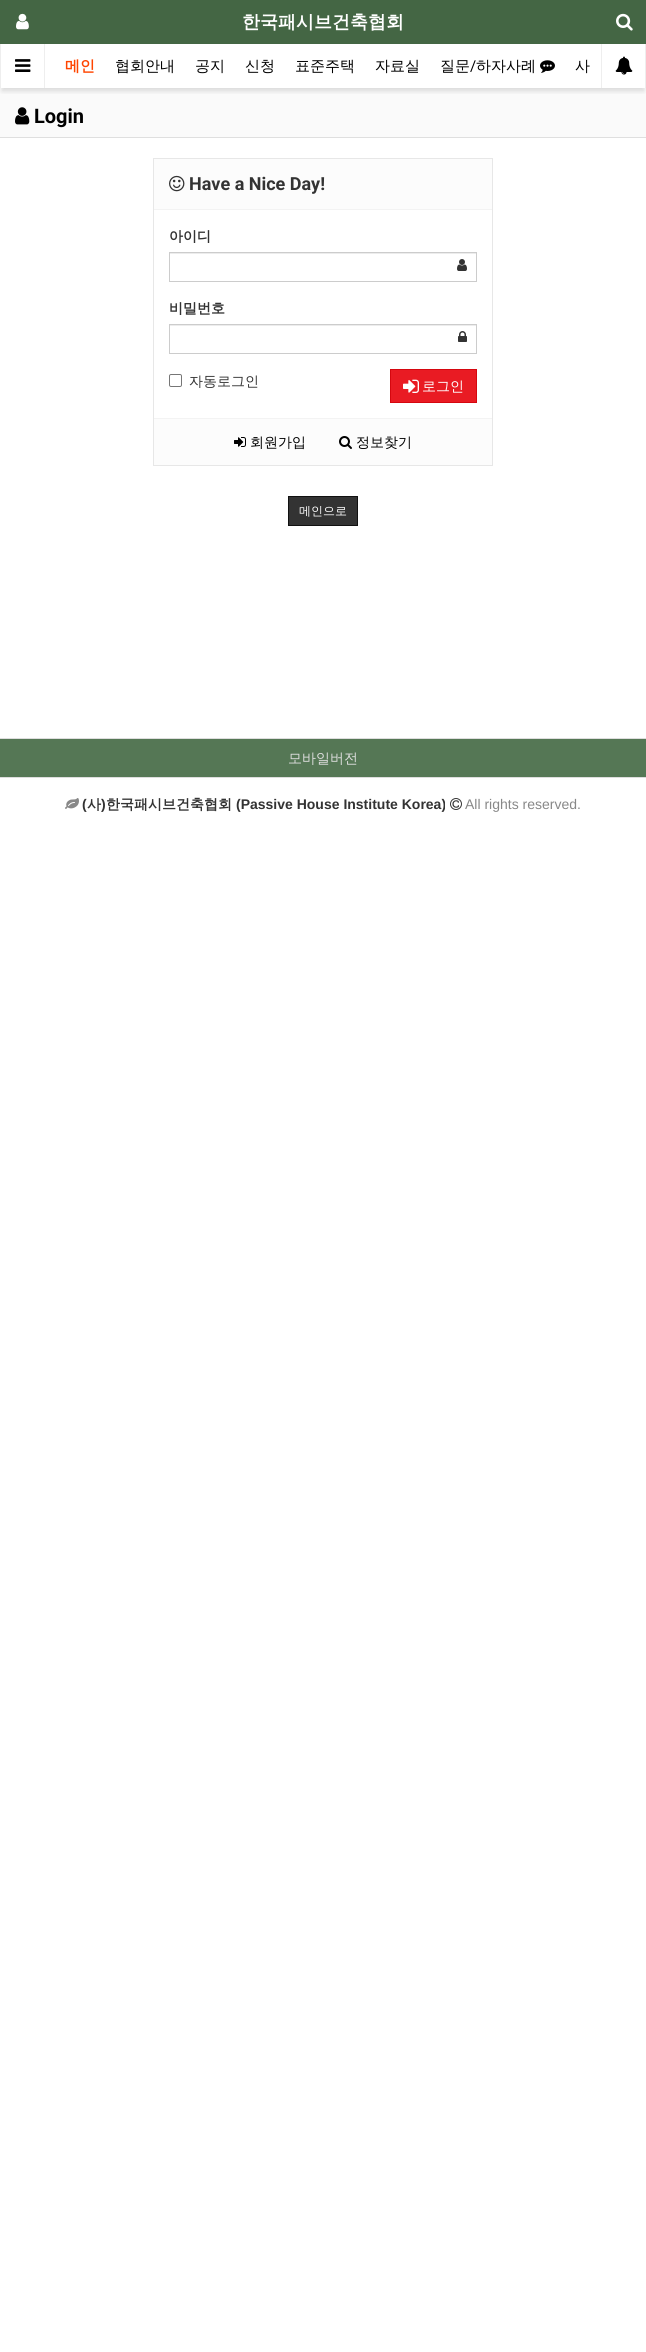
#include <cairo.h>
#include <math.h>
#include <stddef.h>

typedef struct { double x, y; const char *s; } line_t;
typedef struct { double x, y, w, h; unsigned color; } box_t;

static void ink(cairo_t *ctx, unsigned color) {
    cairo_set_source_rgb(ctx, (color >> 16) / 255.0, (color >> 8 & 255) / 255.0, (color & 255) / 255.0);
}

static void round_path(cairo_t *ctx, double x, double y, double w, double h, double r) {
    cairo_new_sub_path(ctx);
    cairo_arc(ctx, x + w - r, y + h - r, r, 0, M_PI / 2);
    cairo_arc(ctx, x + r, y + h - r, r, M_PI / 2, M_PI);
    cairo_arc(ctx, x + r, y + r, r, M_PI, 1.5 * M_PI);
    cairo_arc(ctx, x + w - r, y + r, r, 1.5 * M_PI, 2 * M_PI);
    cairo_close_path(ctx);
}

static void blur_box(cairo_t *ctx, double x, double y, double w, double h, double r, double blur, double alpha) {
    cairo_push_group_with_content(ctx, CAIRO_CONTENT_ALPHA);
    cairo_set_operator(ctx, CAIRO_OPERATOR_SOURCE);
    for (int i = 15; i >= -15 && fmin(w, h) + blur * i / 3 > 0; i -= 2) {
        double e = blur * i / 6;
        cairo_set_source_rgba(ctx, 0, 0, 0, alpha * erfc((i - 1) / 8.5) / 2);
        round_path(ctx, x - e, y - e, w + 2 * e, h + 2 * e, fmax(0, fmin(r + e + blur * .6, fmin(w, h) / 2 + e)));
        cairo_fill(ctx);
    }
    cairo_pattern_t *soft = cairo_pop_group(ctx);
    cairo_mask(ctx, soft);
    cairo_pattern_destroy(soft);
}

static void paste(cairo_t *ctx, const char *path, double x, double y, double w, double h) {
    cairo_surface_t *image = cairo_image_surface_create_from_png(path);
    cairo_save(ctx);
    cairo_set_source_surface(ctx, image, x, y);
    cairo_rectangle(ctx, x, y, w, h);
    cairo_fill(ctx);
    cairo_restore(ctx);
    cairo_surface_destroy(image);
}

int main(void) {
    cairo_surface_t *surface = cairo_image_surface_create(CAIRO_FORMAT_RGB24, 646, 2352);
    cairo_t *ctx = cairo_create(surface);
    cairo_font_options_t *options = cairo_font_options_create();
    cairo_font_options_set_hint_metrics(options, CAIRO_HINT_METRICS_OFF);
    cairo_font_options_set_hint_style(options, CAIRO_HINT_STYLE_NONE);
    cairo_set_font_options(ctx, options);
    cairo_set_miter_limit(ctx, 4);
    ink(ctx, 0xFFFFFF);
    cairo_paint(ctx);
    ink(ctx, 0x446644);
    cairo_rectangle(ctx, 0, 0, 646, 44);
    cairo_fill(ctx);
    paste(ctx, "media/1.png", 16, 13, 13, 17);
    cairo_select_font_face(ctx, "WenQuanYi Zen Hei", CAIRO_FONT_SLANT_NORMAL, CAIRO_FONT_WEIGHT_BOLD);
    cairo_set_font_size(ctx, 18);
    ink(ctx, 0xFFFFFF);
    cairo_move_to(ctx, 242, 28);
    cairo_show_text(ctx, "한국패시브건축협회");
    paste(ctx, "media/2.png", 616, 13, 17, 18);
    ink(ctx, 0xFAFAFA);
    cairo_rectangle(ctx, 0, 88, 646, 49);
    cairo_fill(ctx);
    cairo_save(ctx);
    cairo_rectangle(ctx, 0, 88, 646, 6);
    cairo_clip(ctx);
    ink(ctx, 0x191919);
    blur_box(ctx, 2, 51, 642, 40, 0, 2.5, 0.15);
    cairo_restore(ctx);
    ink(ctx, 0xEEEEEE);
    cairo_rectangle(ctx, 0, 44, 1, 44);
    cairo_fill(ctx);
    paste(ctx, "media/3.png", 15, 59, 16, 13);
    cairo_rectangle(ctx, 44, 44, 1, 44);
    cairo_fill(ctx);
    cairo_set_font_size(ctx, 15);
    ink(ctx, 0xFF4500);
    cairo_move_to(ctx, 65, 71);
    cairo_show_text(ctx, "메인");
    cairo_select_font_face(ctx, "WenQuanYi Zen Hei Medium", CAIRO_FONT_SLANT_NORMAL, CAIRO_FONT_WEIGHT_NORMAL);
    ink(ctx, 0x000000);
    {
        static const line_t items[] = {
            {115, 71, "협회안내"},
            {195, 71, "공지"},
            {245, 71, "신청"},
            {295, 71, "표준주택"},
            {375, 71, "자료실"},
            {440, 71, "질문"},
        };
        for (size_t i = 0; i < sizeof items / sizeof *items; i++) {
            cairo_move_to(ctx, items[i].x, items[i].y);
            cairo_show_text(ctx, items[i].s);
        }
    }
    cairo_select_font_face(ctx, "Roboto", CAIRO_FONT_SLANT_NORMAL, CAIRO_FONT_WEIGHT_NORMAL);
    cairo_move_to(ctx, 470, 71);
    cairo_show_text(ctx, "/");
    cairo_select_font_face(ctx, "WenQuanYi Zen Hei Medium", CAIRO_FONT_SLANT_NORMAL, CAIRO_FONT_WEIGHT_NORMAL);
    cairo_move_to(ctx, 476, 71);
    cairo_show_text(ctx, "하자사례");
    paste(ctx, "media/4.png", 540, 60, 15, 13);
    cairo_move_to(ctx, 575, 71);
    cairo_show_text(ctx, "사");
    ink(ctx, 0xEEEEEE);
    cairo_rectangle(ctx, 645, 44, 1, 44);
    cairo_fill(ctx);
    cairo_rectangle(ctx, 601, 44, 1, 44);
    cairo_fill(ctx);
    paste(ctx, "media/5.png", 615, 56, 18, 19);
    ink(ctx, 0xDFDFDF);
    cairo_rectangle(ctx, 0, 137, 646, 1);
    cairo_fill(ctx);
    paste(ctx, "media/6.png", 15, 107, 15, 18);
    cairo_select_font_face(ctx, "Roboto", CAIRO_FONT_SLANT_NORMAL, CAIRO_FONT_WEIGHT_BOLD);
    cairo_set_font_size(ctx, 20);
    ink(ctx, 0x000000);
    cairo_move_to(ctx, 34, 123);
    cairo_show_text(ctx, "Login");
    ink(ctx, 0xFCFCFC);
    cairo_rectangle(ctx, 153.5, 158.5, 339, 307);
    cairo_fill_preserve(ctx);
    ink(ctx, 0xE7E7E7);
    cairo_set_line_width(ctx, 1);
    cairo_stroke(ctx);
    ink(ctx, 0xF3F3F3);
    cairo_rectangle(ctx, 154, 209, 338, 1);
    cairo_fill(ctx);
    paste(ctx, "media/7.png", 169, 175, 16, 17);
    cairo_set_font_size(ctx, 18);
    ink(ctx, 0x333333);
    cairo_move_to(ctx, 189, 190);
    cairo_show_text(ctx, "Have a Nice Day!");
    ink(ctx, 0xFFFFFF);
    cairo_rectangle(ctx, 154, 210, 338, 208);
    cairo_fill(ctx);
    cairo_select_font_face(ctx, "WenQuanYi Zen Hei", CAIRO_FONT_SLANT_NORMAL, CAIRO_FONT_WEIGHT_BOLD);
    cairo_set_font_size(ctx, 14);
    ink(ctx, 0x333333);
    cairo_move_to(ctx, 169, 241);
    cairo_show_text(ctx, "아이디");
    ink(ctx, 0xECECEC);
    cairo_rectangle(ctx, 170, 253, 306, 1);
    cairo_fill(ctx);
    cairo_rectangle(ctx, 169.5, 252.5, 307, 29);
    ink(ctx, 0xCCCCCC);
    cairo_stroke(ctx);
    paste(ctx, "media/8.png", 457, 259, 10, 12);
    ink(ctx, 0x333333);
    cairo_move_to(ctx, 169, 313);
    cairo_show_text(ctx, "비밀번호");
    ink(ctx, 0xECECEC);
    cairo_rectangle(ctx, 170, 325, 306, 1);
    cairo_fill(ctx);
    cairo_rectangle(ctx, 169.5, 324.5, 307, 29);
    ink(ctx, 0xCCCCCC);
    cairo_stroke(ctx);
    paste(ctx, "media/9.png", 458, 331, 9, 11);
    round_path(ctx, 169.5, 374.5, 12, 12, 1.5);
    ink(ctx, 0x767676);
    cairo_stroke(ctx);
    cairo_select_font_face(ctx, "WenQuanYi Zen Hei Medium", CAIRO_FONT_SLANT_NORMAL, CAIRO_FONT_WEIGHT_NORMAL);
    ink(ctx, 0x333333);
    cairo_move_to(ctx, 189, 386);
    cairo_show_text(ctx, "자동로그인");
    ink(ctx, 0xE91B23);
    cairo_rectangle(ctx, 390.5, 369.5, 86, 33);
    cairo_fill_preserve(ctx);
    ink(ctx, 0xD5070F);
    cairo_stroke(ctx);
    paste(ctx, "media/10.png", 403, 379, 16, 14);
    ink(ctx, 0xFFFFFF);
    cairo_move_to(ctx, 422, 391);
    cairo_show_text(ctx, "로그인");
    ink(ctx, 0xF3F3F3);
    cairo_rectangle(ctx, 154, 418, 338, 1);
    cairo_fill(ctx);
    paste(ctx, "media/11.png", 234, 437, 12, 10);
    ink(ctx, 0x000000);
    cairo_move_to(ctx, 250, 447);
    cairo_show_text(ctx, "회원가입");
    paste(ctx, "media/12.png", 339, 436, 13, 13);
    cairo_move_to(ctx, 356, 447);
    cairo_show_text(ctx, "정보찾기");
    ink(ctx, 0x333333);
    cairo_rectangle(ctx, 288.5, 496.5, 69, 29);
    cairo_fill_preserve(ctx);
    ink(ctx, 0x111111);
    cairo_stroke(ctx);
    cairo_set_font_size(ctx, 12);
    ink(ctx, 0xFFFFFF);
    cairo_move_to(ctx, 299, 515);
    cairo_show_text(ctx, "메인으로");
    {
        static const box_t items[] = {
            {0, 739, 646, 38, 0x557755},
            {0, 738, 646, 1, 0xDDDDDD},
            {0, 777, 646, 1, 0xDDDDDD},
        };
        for (size_t i = 0; i < sizeof items / sizeof *items; i++) {
            ink(ctx, items[i].color);
            cairo_rectangle(ctx, items[i].x, items[i].y, items[i].w, items[i].h);
            cairo_fill(ctx);
        }
    }
    cairo_set_font_size(ctx, 14);
    cairo_move_to(ctx, 288, 763);
    cairo_show_text(ctx, "모바일버전");
    paste(ctx, "media/13.png", 65, 798, 14, 11);
    cairo_select_font_face(ctx, "Liberation Sans", CAIRO_FONT_SLANT_NORMAL, CAIRO_FONT_WEIGHT_BOLD);
    ink(ctx, 0x333333);
    cairo_move_to(ctx, 82, 809);
    cairo_show_text(ctx, "(");
    cairo_select_font_face(ctx, "WenQuanYi Zen Hei", CAIRO_FONT_SLANT_NORMAL, CAIRO_FONT_WEIGHT_BOLD);
    cairo_move_to(ctx, 87, 809);
    cairo_show_text(ctx, "사");
    cairo_select_font_face(ctx, "Liberation Sans", CAIRO_FONT_SLANT_NORMAL, CAIRO_FONT_WEIGHT_BOLD);
    cairo_move_to(ctx, 101, 809);
    cairo_show_text(ctx, ")");
    cairo_select_font_face(ctx, "WenQuanYi Zen Hei", CAIRO_FONT_SLANT_NORMAL, CAIRO_FONT_WEIGHT_BOLD);
    cairo_move_to(ctx, 106, 809);
    cairo_show_text(ctx, "한국패시브건축협회");
    cairo_select_font_face(ctx, "Liberation Sans", CAIRO_FONT_SLANT_NORMAL, CAIRO_FONT_WEIGHT_BOLD);
    cairo_move_to(ctx, 236, 809);
    cairo_show_text(ctx, "(Passive House Institute Korea)");
    paste(ctx, "media/14.png", 450, 798, 12, 12);
    cairo_select_font_face(ctx, "Liberation Sans", CAIRO_FONT_SLANT_NORMAL, CAIRO_FONT_WEIGHT_NORMAL);
    ink(ctx, 0x888888);
    cairo_move_to(ctx, 465, 809);
    cairo_show_text(ctx, "All rights reserved.");
    cairo_surface_write_to_png(surface, "image.png");
    cairo_font_options_destroy(options);
    cairo_destroy(ctx);
    cairo_surface_destroy(surface);
    return 0;
}
